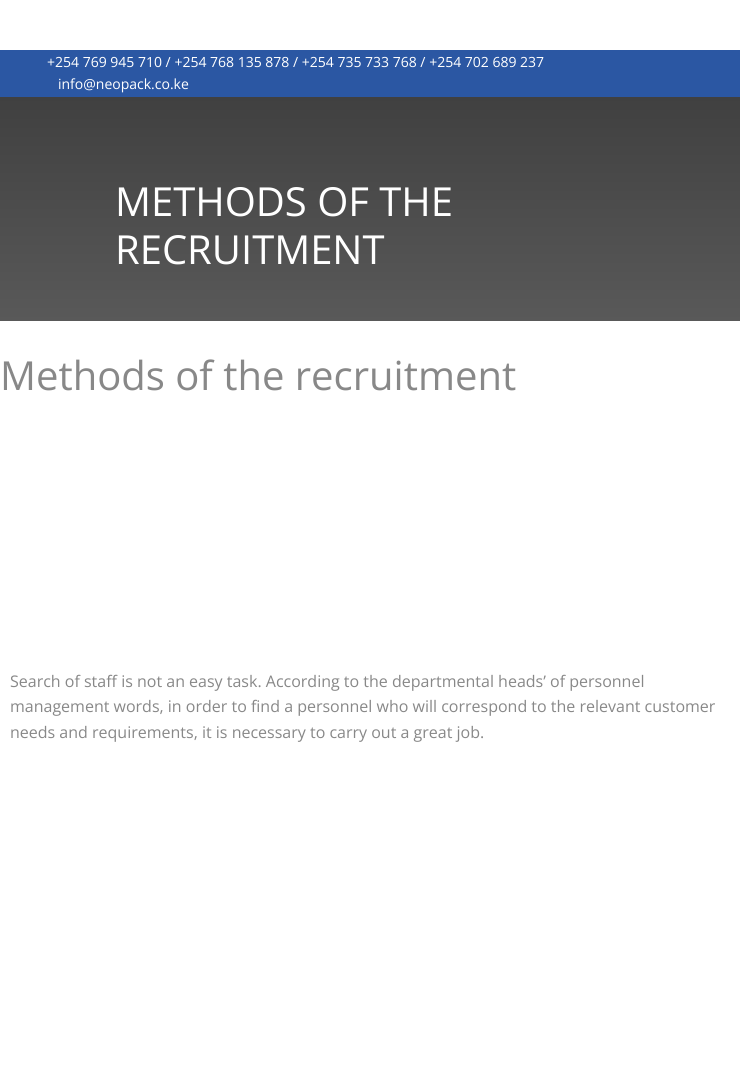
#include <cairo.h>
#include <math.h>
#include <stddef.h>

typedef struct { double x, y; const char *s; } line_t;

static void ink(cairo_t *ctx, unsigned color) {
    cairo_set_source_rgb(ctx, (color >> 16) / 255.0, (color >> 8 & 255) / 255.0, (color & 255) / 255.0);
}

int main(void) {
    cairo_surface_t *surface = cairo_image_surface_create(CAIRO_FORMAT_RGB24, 740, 1080);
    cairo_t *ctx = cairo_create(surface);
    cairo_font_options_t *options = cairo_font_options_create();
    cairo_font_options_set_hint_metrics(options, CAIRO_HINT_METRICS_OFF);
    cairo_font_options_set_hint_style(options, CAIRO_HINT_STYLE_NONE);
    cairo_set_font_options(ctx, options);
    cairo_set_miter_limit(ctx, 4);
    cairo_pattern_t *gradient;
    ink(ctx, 0xFFFFFF);
    cairo_paint(ctx);
    ink(ctx, 0x2B57A3);
    cairo_rectangle(ctx, 0, 50, 740, 47);
    cairo_fill(ctx);
    cairo_select_font_face(ctx, "Open Sans", CAIRO_FONT_SLANT_NORMAL, CAIRO_FONT_WEIGHT_NORMAL);
    cairo_set_font_size(ctx, 14);
    ink(ctx, 0xFFFFFF);
    cairo_move_to(ctx, 47, 67);
    cairo_show_text(ctx, "+254 769 945 710 / +254 768 135 878 / +254 735 733 768 / +254 702 689 237");
    cairo_move_to(ctx, 58, 89);
    cairo_show_text(ctx, "info@neopack.co.ke");
    gradient = cairo_pattern_create_linear(370, 97, 370, 321);
    cairo_pattern_add_color_stop_rgba(gradient, 0, 0.251, 0.251, 0.251, 1);
    cairo_pattern_add_color_stop_rgba(gradient, 1, 0.349, 0.349, 0.349, 1);
    cairo_set_source(ctx, gradient);
    cairo_pattern_destroy(gradient);
    cairo_rectangle(ctx, 0, 97, 740, 224);
    cairo_fill(ctx);
    cairo_set_font_size(ctx, 40);
    ink(ctx, 0xFFFFFF);
    cairo_move_to(ctx, 115, 216);
    cairo_show_text(ctx, "METHODS OF THE");
    cairo_move_to(ctx, 115, 264);
    cairo_show_text(ctx, "RECRUITMENT");
    ink(ctx, 0x888888);
    cairo_move_to(ctx, 0, 390);
    cairo_show_text(ctx, "Methods of the recruitment");
    cairo_set_font_size(ctx, 16);
    {
        static const line_t items[] = {
            {10, 687, "Search of staff is not an easy task. According to the departmental heads’ of personnel"},
            {10, 712, "management words, in order to find a personnel who will correspond to the relevant customer"},
            {10, 738, "needs and requirements, it is necessary to carry out a great job."},
        };
        for (size_t i = 0; i < sizeof items / sizeof *items; i++) {
            cairo_move_to(ctx, items[i].x, items[i].y);
            cairo_show_text(ctx, items[i].s);
        }
    }
    cairo_surface_write_to_png(surface, "image.png");
    cairo_font_options_destroy(options);
    cairo_destroy(ctx);
    cairo_surface_destroy(surface);
    return 0;
}
